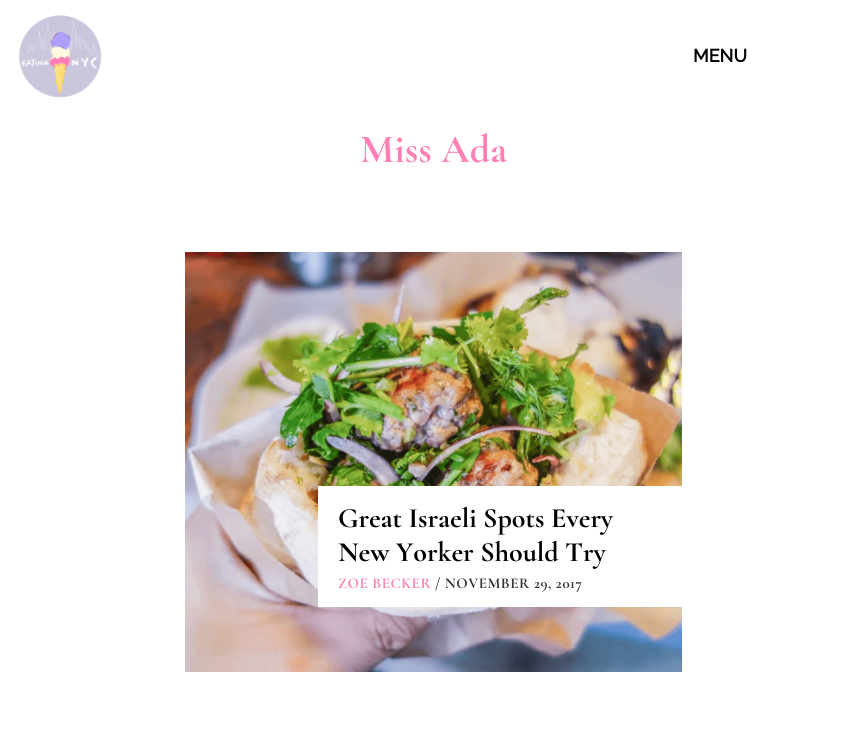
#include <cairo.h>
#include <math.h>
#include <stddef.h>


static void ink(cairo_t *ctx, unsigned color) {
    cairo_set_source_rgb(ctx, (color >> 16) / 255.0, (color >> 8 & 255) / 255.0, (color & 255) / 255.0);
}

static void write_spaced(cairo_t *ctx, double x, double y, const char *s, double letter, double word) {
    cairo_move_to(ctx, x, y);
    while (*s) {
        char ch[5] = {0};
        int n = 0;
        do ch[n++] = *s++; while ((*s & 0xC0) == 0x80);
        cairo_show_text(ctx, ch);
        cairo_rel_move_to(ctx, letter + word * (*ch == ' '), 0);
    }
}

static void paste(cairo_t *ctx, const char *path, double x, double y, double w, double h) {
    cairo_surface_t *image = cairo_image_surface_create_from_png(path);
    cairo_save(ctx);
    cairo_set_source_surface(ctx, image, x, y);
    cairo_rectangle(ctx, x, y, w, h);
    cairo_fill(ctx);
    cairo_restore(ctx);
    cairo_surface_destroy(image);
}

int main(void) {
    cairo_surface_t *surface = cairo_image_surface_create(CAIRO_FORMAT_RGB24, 867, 739);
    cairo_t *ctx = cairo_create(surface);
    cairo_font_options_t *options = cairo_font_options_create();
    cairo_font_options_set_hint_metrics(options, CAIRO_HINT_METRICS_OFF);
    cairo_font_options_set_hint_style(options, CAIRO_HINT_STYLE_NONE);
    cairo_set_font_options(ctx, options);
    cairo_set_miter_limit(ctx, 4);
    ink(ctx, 0xFFFFFF);
    cairo_paint(ctx);
    paste(ctx, "media/1.png", 18, 15, 84, 83);
    cairo_select_font_face(ctx, "Raleway", CAIRO_FONT_SLANT_NORMAL, CAIRO_FONT_WEIGHT_BOLD);
    cairo_set_font_size(ctx, 18);
    ink(ctx, 0x000000);
    cairo_move_to(ctx, 693, 62);
    cairo_show_text(ctx, "MENU");
    cairo_select_font_face(ctx, "Cormorant Garamond", CAIRO_FONT_SLANT_NORMAL, CAIRO_FONT_WEIGHT_BOLD);
    cairo_set_font_size(ctx, 40);
    ink(ctx, 0xFF7FB7);
    cairo_move_to(ctx, 360, 162);
    cairo_show_text(ctx, "Miss Ada");
    paste(ctx, "media/2.png", 185, 252, 497, 420);
    ink(ctx, 0xFFFFFF);
    cairo_rectangle(ctx, 318, 486, 364, 121);
    cairo_fill(ctx);
    cairo_set_font_size(ctx, 28);
    ink(ctx, 0x000000);
    cairo_move_to(ctx, 338, 527);
    cairo_show_text(ctx, "Great Israeli Spots Every");
    cairo_move_to(ctx, 338, 561);
    cairo_show_text(ctx, "New Yorker Should Try");
    cairo_set_font_size(ctx, 15);
    ink(ctx, 0xFF7FB7);
    write_spaced(ctx, 338, 588, "ZOE BECKER", 0.5, 0);
    ink(ctx, 0x333333);
    write_spaced(ctx, 435, 588, "/ NOVEMBER 29, 2017", 0.5, 0);
    cairo_surface_write_to_png(surface, "image.png");
    cairo_font_options_destroy(options);
    cairo_destroy(ctx);
    cairo_surface_destroy(surface);
    return 0;
}
